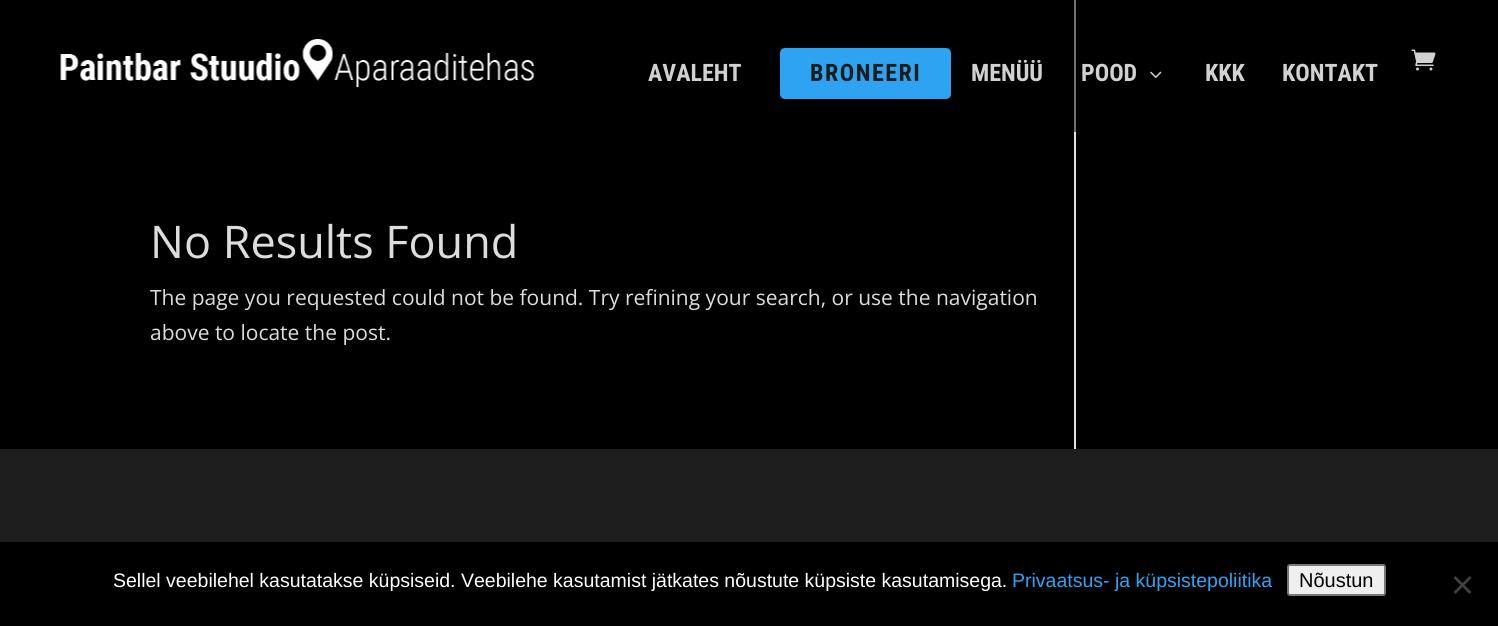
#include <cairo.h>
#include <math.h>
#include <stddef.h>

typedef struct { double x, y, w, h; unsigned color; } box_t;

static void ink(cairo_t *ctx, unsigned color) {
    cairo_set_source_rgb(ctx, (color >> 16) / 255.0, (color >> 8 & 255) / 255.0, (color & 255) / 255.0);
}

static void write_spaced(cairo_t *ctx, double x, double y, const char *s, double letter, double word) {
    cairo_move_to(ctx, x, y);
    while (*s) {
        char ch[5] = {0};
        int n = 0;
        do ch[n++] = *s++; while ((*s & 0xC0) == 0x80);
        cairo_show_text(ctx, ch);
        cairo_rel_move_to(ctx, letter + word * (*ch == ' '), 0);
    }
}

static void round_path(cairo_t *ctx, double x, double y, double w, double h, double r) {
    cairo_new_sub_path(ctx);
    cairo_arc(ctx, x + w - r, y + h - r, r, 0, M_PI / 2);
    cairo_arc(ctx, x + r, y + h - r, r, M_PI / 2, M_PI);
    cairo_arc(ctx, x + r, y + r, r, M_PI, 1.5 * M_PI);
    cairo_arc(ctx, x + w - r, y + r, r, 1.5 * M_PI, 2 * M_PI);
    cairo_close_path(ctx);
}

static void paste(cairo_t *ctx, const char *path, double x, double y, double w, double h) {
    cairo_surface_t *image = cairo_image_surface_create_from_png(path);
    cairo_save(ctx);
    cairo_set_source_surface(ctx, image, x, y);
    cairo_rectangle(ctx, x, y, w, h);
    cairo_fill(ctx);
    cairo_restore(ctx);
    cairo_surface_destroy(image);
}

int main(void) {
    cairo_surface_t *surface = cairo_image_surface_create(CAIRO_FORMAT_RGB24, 1498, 626);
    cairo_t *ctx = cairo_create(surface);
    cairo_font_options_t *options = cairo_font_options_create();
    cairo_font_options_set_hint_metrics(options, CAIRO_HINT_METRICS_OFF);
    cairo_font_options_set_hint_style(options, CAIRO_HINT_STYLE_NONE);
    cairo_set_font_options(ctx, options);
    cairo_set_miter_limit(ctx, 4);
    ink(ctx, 0x000000);
    cairo_paint(ctx);
    paste(ctx, "media/1.png", 60, 39, 475, 48);
    cairo_select_font_face(ctx, "Roboto Condensed", CAIRO_FONT_SLANT_NORMAL, CAIRO_FONT_WEIGHT_BOLD);
    cairo_set_font_size(ctx, 24);
    ink(ctx, 0xD1D1D1);
    cairo_move_to(ctx, 648, 81);
    cairo_show_text(ctx, "AVALEHT");
    ink(ctx, 0x2EA3F2);
    round_path(ctx, 780, 48, 171, 51, 5);
    cairo_fill(ctx);
    ink(ctx, 0x1C1C1C);
    write_spaced(ctx, 810, 81, "BRONEERI", 1.5, 0);
    ink(ctx, 0xD1D1D1);
    cairo_move_to(ctx, 971, 81);
    cairo_show_text(ctx, "MENÜÜ");
    cairo_move_to(ctx, 1081, 81);
    cairo_show_text(ctx, "POOD");
    paste(ctx, "media/2.png", 1150, 71, 12, 7);
    cairo_move_to(ctx, 1205, 81);
    cairo_show_text(ctx, "KKK");
    cairo_move_to(ctx, 1282, 81);
    cairo_show_text(ctx, "KONTAKT");
    paste(ctx, "media/3.png", 1411, 49, 25, 22);
    cairo_select_font_face(ctx, "Open Sans", CAIRO_FONT_SLANT_NORMAL, CAIRO_FONT_WEIGHT_NORMAL);
    cairo_set_font_size(ctx, 45);
    ink(ctx, 0xDDDDDD);
    cairo_move_to(ctx, 150, 258);
    cairo_show_text(ctx, "No Results Found");
    cairo_set_font_size(ctx, 21);
    cairo_move_to(ctx, 150, 305);
    cairo_show_text(ctx, "The page you requested could not be found. Try refining your search, or use the navigation");
    cairo_move_to(ctx, 150, 340);
    cairo_show_text(ctx, "above to locate the post.");
    {
        static const box_t items[] = {
            {1074, 132, 2, 317, 0xE2E2E2},
            {1074, 0, 2, 132, 0x717171},
            {0, 449, 1498, 93, 0x1E1E1E},
        };
        for (size_t i = 0; i < sizeof items / sizeof *items; i++) {
            ink(ctx, items[i].color);
            cairo_rectangle(ctx, items[i].x, items[i].y, items[i].w, items[i].h);
            cairo_fill(ctx);
        }
    }
    cairo_select_font_face(ctx, "Liberation Sans", CAIRO_FONT_SLANT_NORMAL, CAIRO_FONT_WEIGHT_NORMAL);
    cairo_set_font_size(ctx, 19.5);
    ink(ctx, 0xFFFFFF);
    cairo_move_to(ctx, 113, 587);
    cairo_show_text(ctx, "Sellel veebilehel kasutatakse küpsiseid. Veebilehe kasutamist jätkates nõustute küpsiste kasutamisega.");
    ink(ctx, 0x2EA3F2);
    cairo_move_to(ctx, 1012, 587);
    cairo_show_text(ctx, "Privaatsus- ja küpsistepoliitika");
    ink(ctx, 0xEFEFEF);
    round_path(ctx, 1288, 565, 97, 30, 2);
    cairo_fill_preserve(ctx);
    ink(ctx, 0x767676);
    cairo_stroke(ctx);
    cairo_set_font_size(ctx, 20);
    ink(ctx, 0x000000);
    cairo_move_to(ctx, 1299, 587);
    cairo_show_text(ctx, "Nõustun");
    ink(ctx, 0x404040);
    cairo_new_path(ctx);
    cairo_move_to(ctx, 1469.5, 576);
    cairo_line_to(ctx, 1471.5, 578);
    cairo_line_to(ctx, 1455.5, 594);
    cairo_line_to(ctx, 1453.5, 592);
    cairo_close_path(ctx);
    cairo_fill(ctx);
    cairo_new_path(ctx);
    cairo_move_to(ctx, 1453.5, 578);
    cairo_line_to(ctx, 1455.5, 576);
    cairo_line_to(ctx, 1471.5, 592);
    cairo_line_to(ctx, 1469.5, 594);
    cairo_close_path(ctx);
    cairo_fill(ctx);
    cairo_surface_write_to_png(surface, "image.png");
    cairo_font_options_destroy(options);
    cairo_destroy(ctx);
    cairo_surface_destroy(surface);
    return 0;
}
